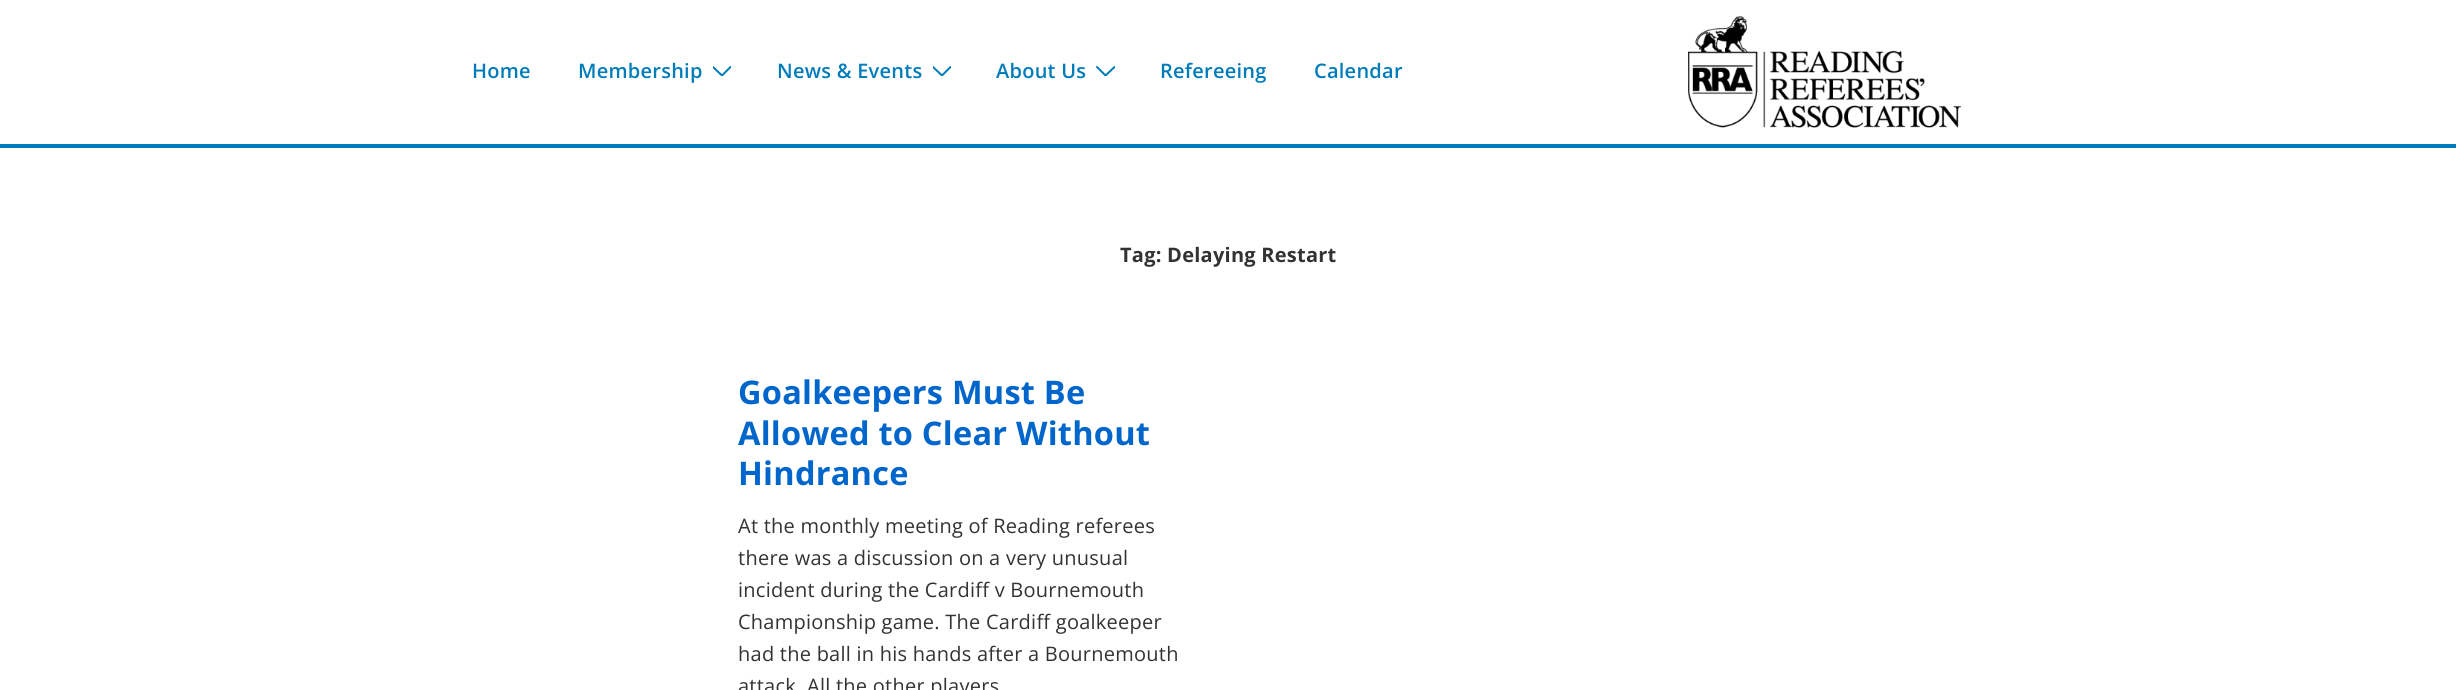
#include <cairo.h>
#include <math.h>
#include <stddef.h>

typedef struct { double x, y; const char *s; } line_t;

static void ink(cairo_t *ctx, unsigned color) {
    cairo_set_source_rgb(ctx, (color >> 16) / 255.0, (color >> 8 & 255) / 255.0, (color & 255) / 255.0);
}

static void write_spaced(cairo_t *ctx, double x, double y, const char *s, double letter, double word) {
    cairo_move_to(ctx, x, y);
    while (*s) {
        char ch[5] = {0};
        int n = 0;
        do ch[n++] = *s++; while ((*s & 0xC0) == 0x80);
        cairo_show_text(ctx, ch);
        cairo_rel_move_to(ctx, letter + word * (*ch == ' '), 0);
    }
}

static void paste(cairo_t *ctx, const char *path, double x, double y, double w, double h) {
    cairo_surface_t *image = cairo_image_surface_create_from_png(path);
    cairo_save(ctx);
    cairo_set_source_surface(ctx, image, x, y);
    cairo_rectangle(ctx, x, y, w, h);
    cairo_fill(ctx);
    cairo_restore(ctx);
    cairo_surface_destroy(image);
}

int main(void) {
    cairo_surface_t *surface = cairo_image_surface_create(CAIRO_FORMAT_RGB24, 2456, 690);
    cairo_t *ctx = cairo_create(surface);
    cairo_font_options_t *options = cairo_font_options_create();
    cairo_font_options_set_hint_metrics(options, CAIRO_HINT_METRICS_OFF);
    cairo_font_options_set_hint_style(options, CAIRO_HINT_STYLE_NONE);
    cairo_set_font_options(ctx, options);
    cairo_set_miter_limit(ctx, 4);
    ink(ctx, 0xFFFFFF);
    cairo_paint(ctx);
    ink(ctx, 0x007CBA);
    cairo_rectangle(ctx, 0, 144, 2456, 4);
    cairo_fill(ctx);
    cairo_select_font_face(ctx, "Open Sans SemiBold", CAIRO_FONT_SLANT_NORMAL, CAIRO_FONT_WEIGHT_NORMAL);
    cairo_set_font_size(ctx, 20);
    write_spaced(ctx, 472, 78, "Home", 0.25, 0);
    write_spaced(ctx, 578, 78, "Membership", 0.25, 0);
    cairo_save(ctx);
    cairo_rectangle(ctx, 713, 66, 18, 10);
    cairo_clip(ctx);
    cairo_new_path(ctx);
    cairo_move_to(ctx, 713, 67);
    cairo_line_to(ctx, 722, 75.5);
    cairo_line_to(ctx, 730.5, 67);
    cairo_set_line_cap(ctx, CAIRO_LINE_CAP_ROUND);
    cairo_stroke(ctx);
    cairo_restore(ctx);
    write_spaced(ctx, 777, 78, "News & Events", 0.25, 0);
    cairo_save(ctx);
    cairo_rectangle(ctx, 933, 66, 18, 10);
    cairo_clip(ctx);
    cairo_new_path(ctx);
    cairo_move_to(ctx, 933, 67);
    cairo_line_to(ctx, 942, 75.5);
    cairo_line_to(ctx, 950.5, 67);
    cairo_set_line_cap(ctx, CAIRO_LINE_CAP_ROUND);
    cairo_stroke(ctx);
    cairo_restore(ctx);
    write_spaced(ctx, 996, 78, "About Us", 0.25, 0);
    cairo_save(ctx);
    cairo_rectangle(ctx, 1096, 66, 19, 10);
    cairo_clip(ctx);
    cairo_new_path(ctx);
    cairo_move_to(ctx, 1097, 67);
    cairo_line_to(ctx, 1105.5, 75.5);
    cairo_line_to(ctx, 1114.5, 67);
    cairo_set_line_cap(ctx, CAIRO_LINE_CAP_ROUND);
    cairo_stroke(ctx);
    cairo_restore(ctx);
    write_spaced(ctx, 1160, 78, "Refereeing", 0.25, 0);
    write_spaced(ctx, 1314, 78, "Calendar", 0.25, 0);
    paste(ctx, "media/1.png", 1688, 16, 273, 112);
    cairo_select_font_face(ctx, "Open Sans", CAIRO_FONT_SLANT_NORMAL, CAIRO_FONT_WEIGHT_BOLD);
    ink(ctx, 0x333333);
    write_spaced(ctx, 1120, 262, "Tag: Delaying Restart", 0.25, 0);
    cairo_set_font_size(ctx, 32.5);
    ink(ctx, 0x0066CC);
    {
        static const line_t items[] = {
            {738, 404, "Goalkeepers Must Be"},
            {738, 445, "Allowed to Clear Without"},
            {738, 485, "Hindrance"},
        };
        for (size_t i = 0; i < sizeof items / sizeof *items; i++) {
            write_spaced(ctx, items[i].x, items[i].y, items[i].s, 0.25, 0);
        }
    }
    cairo_select_font_face(ctx, "Open Sans", CAIRO_FONT_SLANT_NORMAL, CAIRO_FONT_WEIGHT_NORMAL);
    cairo_set_font_size(ctx, 20);
    ink(ctx, 0x333333);
    {
        static const line_t items[] = {
            {738, 533, "At the monthly meeting of Reading referees"},
            {738, 565, "there was a discussion on a very unusual"},
            {738, 597, "incident during the Cardiff v Bournemouth"},
            {738, 629, "Championship game. The Cardiff goalkeeper"},
            {738, 661, "had the ball in his hands after a Bournemouth"},
            {738, 693, "attack. All the other players"},
        };
        for (size_t i = 0; i < sizeof items / sizeof *items; i++) {
            write_spaced(ctx, items[i].x, items[i].y, items[i].s, 0.25, 0);
        }
    }
    cairo_surface_write_to_png(surface, "image.png");
    cairo_font_options_destroy(options);
    cairo_destroy(ctx);
    cairo_surface_destroy(surface);
    return 0;
}
